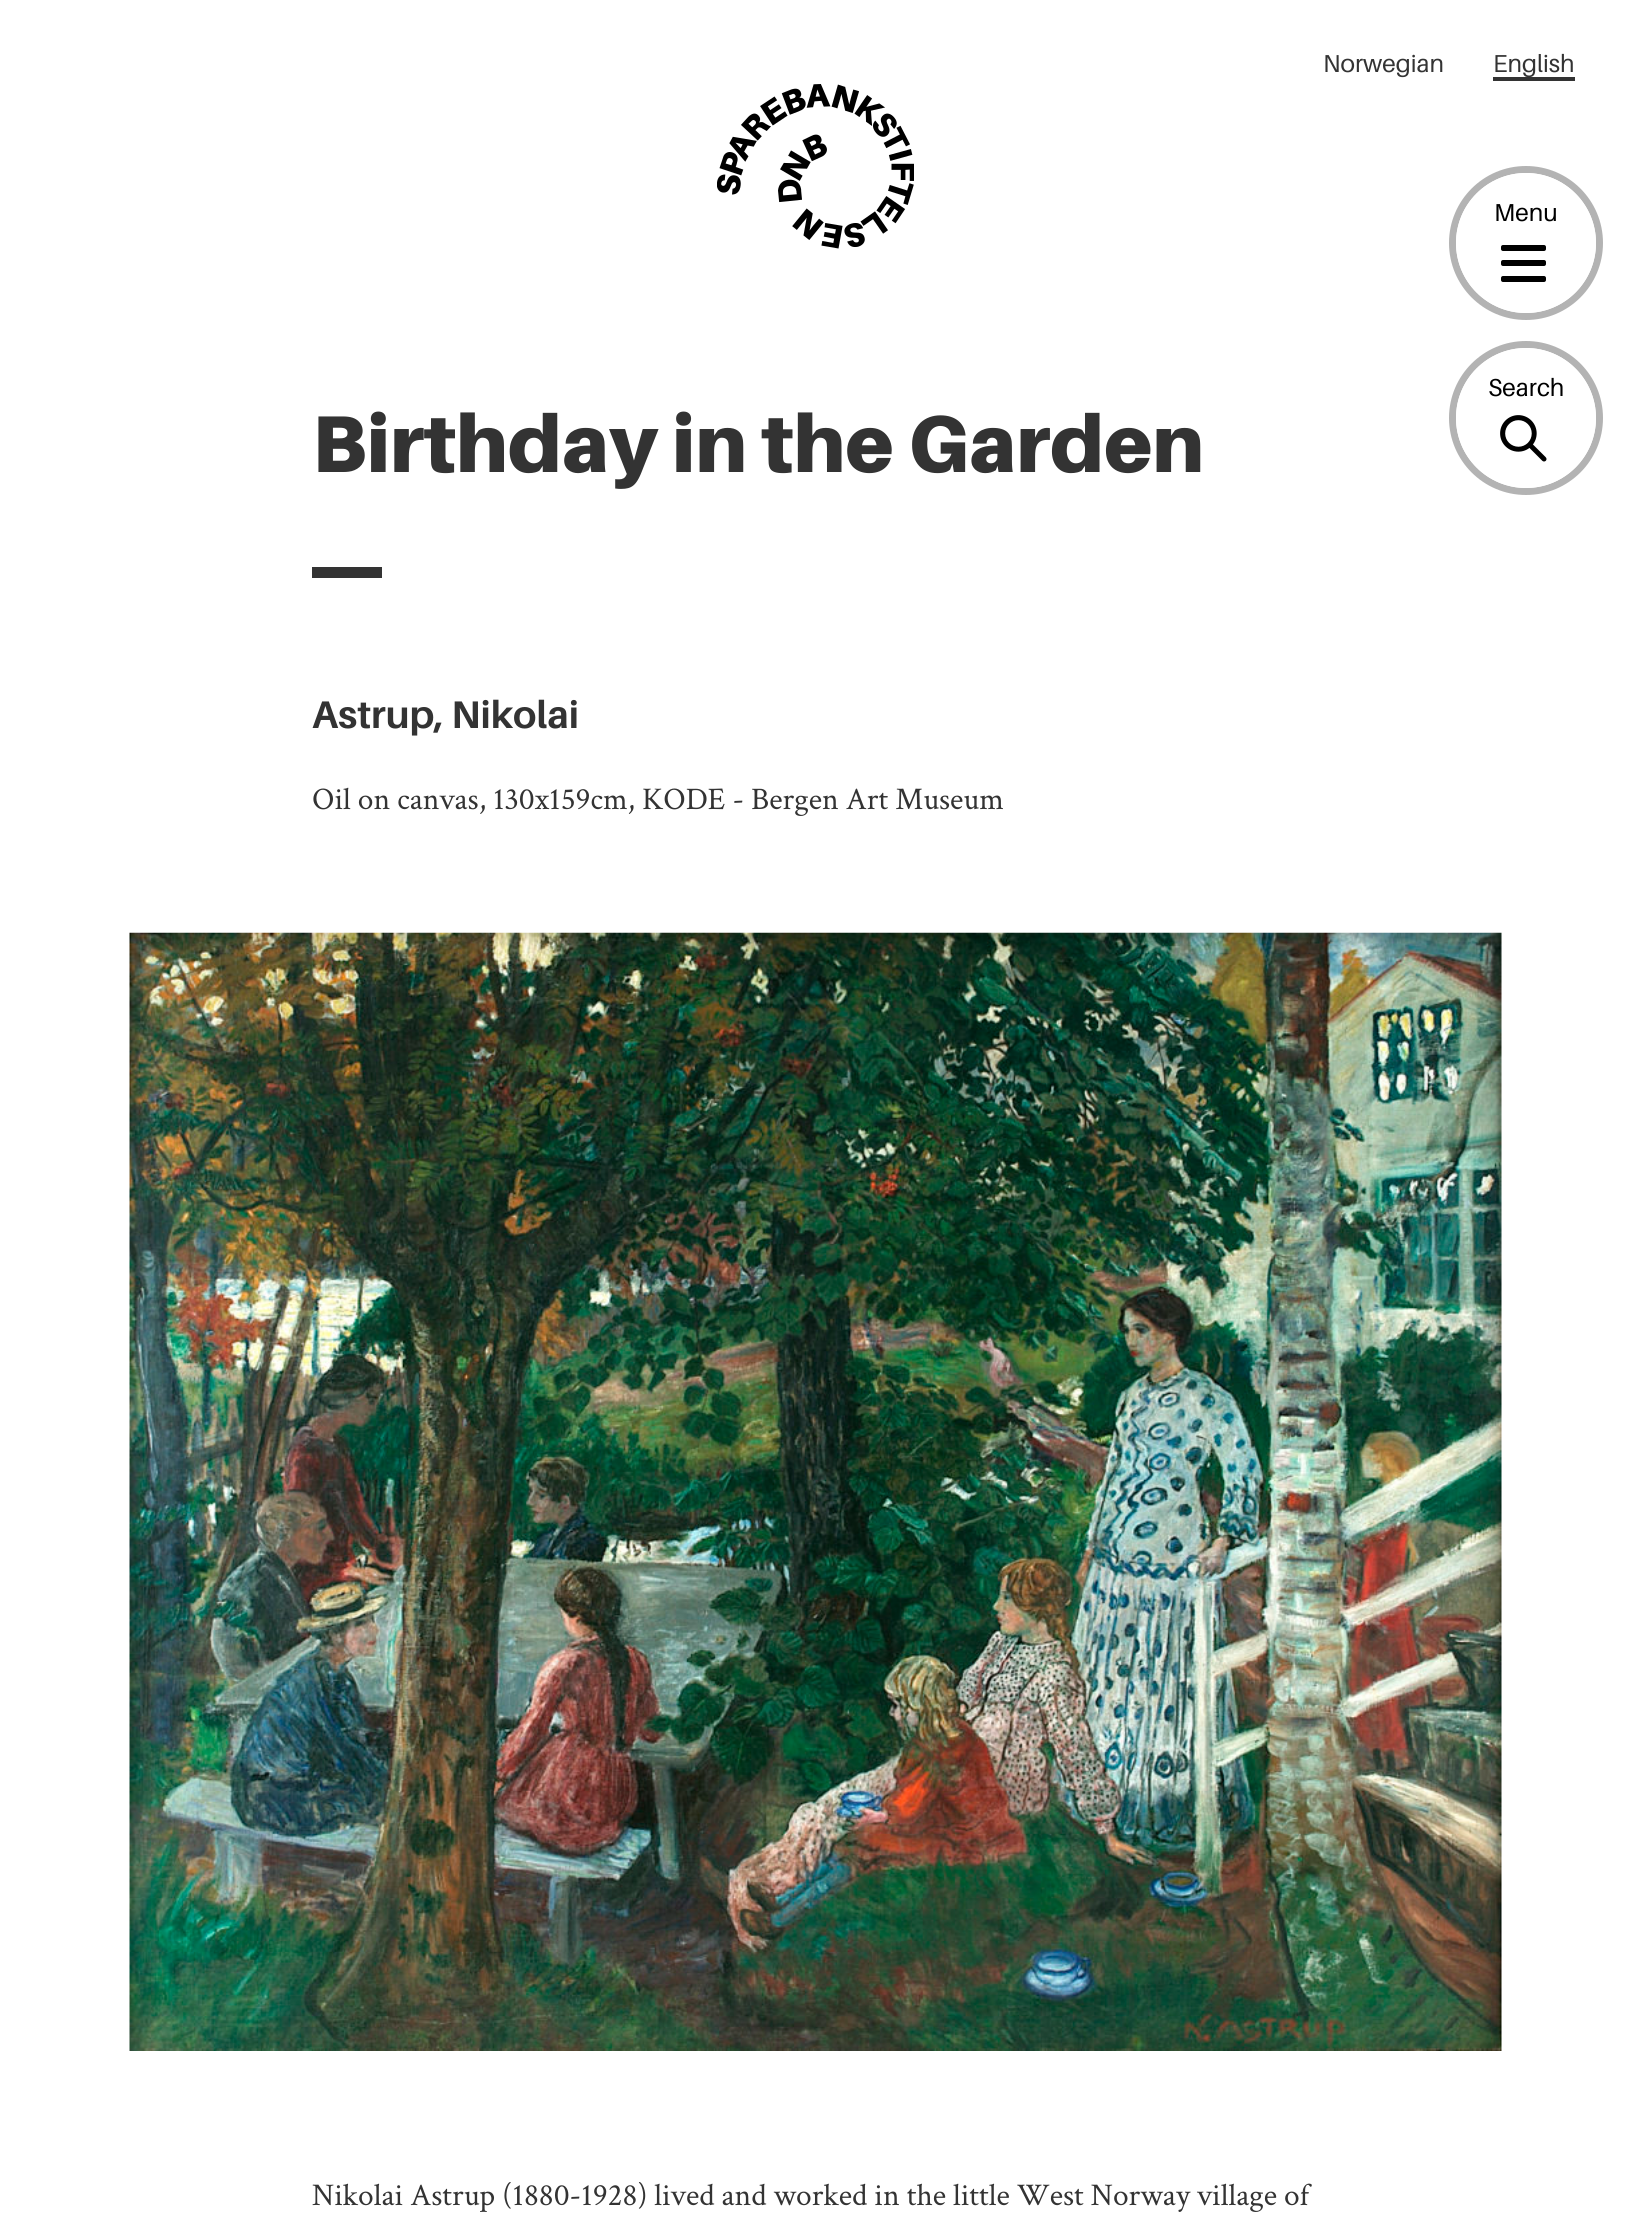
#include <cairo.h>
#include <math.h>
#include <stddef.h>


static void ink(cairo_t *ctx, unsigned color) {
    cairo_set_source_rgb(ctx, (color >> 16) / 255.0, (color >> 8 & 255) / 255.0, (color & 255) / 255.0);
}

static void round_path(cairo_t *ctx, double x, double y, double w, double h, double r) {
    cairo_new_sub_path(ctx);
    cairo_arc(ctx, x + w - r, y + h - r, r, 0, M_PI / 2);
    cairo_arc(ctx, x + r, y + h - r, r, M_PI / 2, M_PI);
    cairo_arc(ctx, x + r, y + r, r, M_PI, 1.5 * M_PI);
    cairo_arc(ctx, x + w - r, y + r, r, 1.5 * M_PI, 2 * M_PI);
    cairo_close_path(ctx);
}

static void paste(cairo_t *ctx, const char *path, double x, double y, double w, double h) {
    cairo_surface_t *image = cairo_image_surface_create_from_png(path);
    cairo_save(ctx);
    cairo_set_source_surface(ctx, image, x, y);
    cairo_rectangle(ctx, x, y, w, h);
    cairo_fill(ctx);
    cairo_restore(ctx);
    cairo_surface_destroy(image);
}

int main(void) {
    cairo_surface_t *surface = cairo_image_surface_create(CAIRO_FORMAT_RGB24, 1630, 2219);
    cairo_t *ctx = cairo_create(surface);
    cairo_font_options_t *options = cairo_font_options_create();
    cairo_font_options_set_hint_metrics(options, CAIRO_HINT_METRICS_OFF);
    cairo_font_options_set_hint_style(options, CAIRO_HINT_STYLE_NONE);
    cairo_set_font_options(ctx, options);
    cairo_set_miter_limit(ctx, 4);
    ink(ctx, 0xFFFFFF);
    cairo_paint(ctx);
    cairo_select_font_face(ctx, "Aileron", CAIRO_FONT_SLANT_NORMAL, CAIRO_FONT_WEIGHT_NORMAL);
    cairo_set_font_size(ctx, 24.5);
    ink(ctx, 0x333333);
    cairo_move_to(ctx, 1323, 72);
    cairo_show_text(ctx, "Norwegian");
    cairo_rectangle(ctx, 1493, 77, 82, 4);
    cairo_fill(ctx);
    cairo_move_to(ctx, 1493, 72);
    cairo_show_text(ctx, "English");
    paste(ctx, "media/1.png", 717, 84, 197, 165);
    cairo_arc(ctx, 1526, 243, 73.5, 0, 2 * M_PI);
    ink(ctx, 0xB3B3B3);
    cairo_set_line_width(ctx, 7);
    cairo_stroke(ctx);
    ink(ctx, 0xFFFFFF);
    cairo_arc(ctx, 1526, 243, 70, 0, 2 * M_PI);
    cairo_fill(ctx);
    ink(ctx, 0x000000);
    cairo_move_to(ctx, 1494, 221);
    cairo_show_text(ctx, "Menu");
    round_path(ctx, 1501, 245, 45, 6, 2);
    cairo_fill(ctx);
    round_path(ctx, 1501, 260, 45, 6, 2);
    cairo_fill(ctx);
    round_path(ctx, 1501, 276, 45, 6, 2);
    cairo_fill(ctx);
    cairo_arc(ctx, 1526, 418, 73.5, 0, 2 * M_PI);
    ink(ctx, 0xB3B3B3);
    cairo_stroke(ctx);
    ink(ctx, 0xFFFFFF);
    cairo_arc(ctx, 1526, 418, 70, 0, 2 * M_PI);
    cairo_fill(ctx);
    ink(ctx, 0x000000);
    cairo_move_to(ctx, 1488, 396);
    cairo_show_text(ctx, "Search");
    paste(ctx, "media/2.png", 1500, 415, 47, 47);
    cairo_select_font_face(ctx, "Aileron Black", CAIRO_FONT_SLANT_NORMAL, CAIRO_FONT_WEIGHT_NORMAL);
    cairo_set_font_size(ctx, 80.5);
    ink(ctx, 0x333333);
    cairo_move_to(ctx, 312, 472);
    cairo_show_text(ctx, "Birthday in the Garden");
    cairo_rectangle(ctx, 312, 567, 70, 11);
    cairo_fill(ctx);
    cairo_select_font_face(ctx, "Aileron", CAIRO_FONT_SLANT_NORMAL, CAIRO_FONT_WEIGHT_BOLD);
    cairo_set_font_size(ctx, 38.5);
    cairo_move_to(ctx, 312, 728);
    cairo_show_text(ctx, "Astrup, Nikolai");
    cairo_select_font_face(ctx, "Crimson Text", CAIRO_FONT_SLANT_NORMAL, CAIRO_FONT_WEIGHT_NORMAL);
    cairo_set_font_size(ctx, 31.5);
    cairo_move_to(ctx, 312, 809);
    cairo_show_text(ctx, "Oil on canvas, 130x159cm, KODE - Bergen Art Museum");
    paste(ctx, "media/3.png", 129, 932, 1373, 1119);
    cairo_move_to(ctx, 312, 2205);
    cairo_show_text(ctx, "Nikolai Astrup (1880-1928) lived and worked in the little West Norway village of");
    cairo_surface_write_to_png(surface, "image.png");
    cairo_font_options_destroy(options);
    cairo_destroy(ctx);
    cairo_surface_destroy(surface);
    return 0;
}
